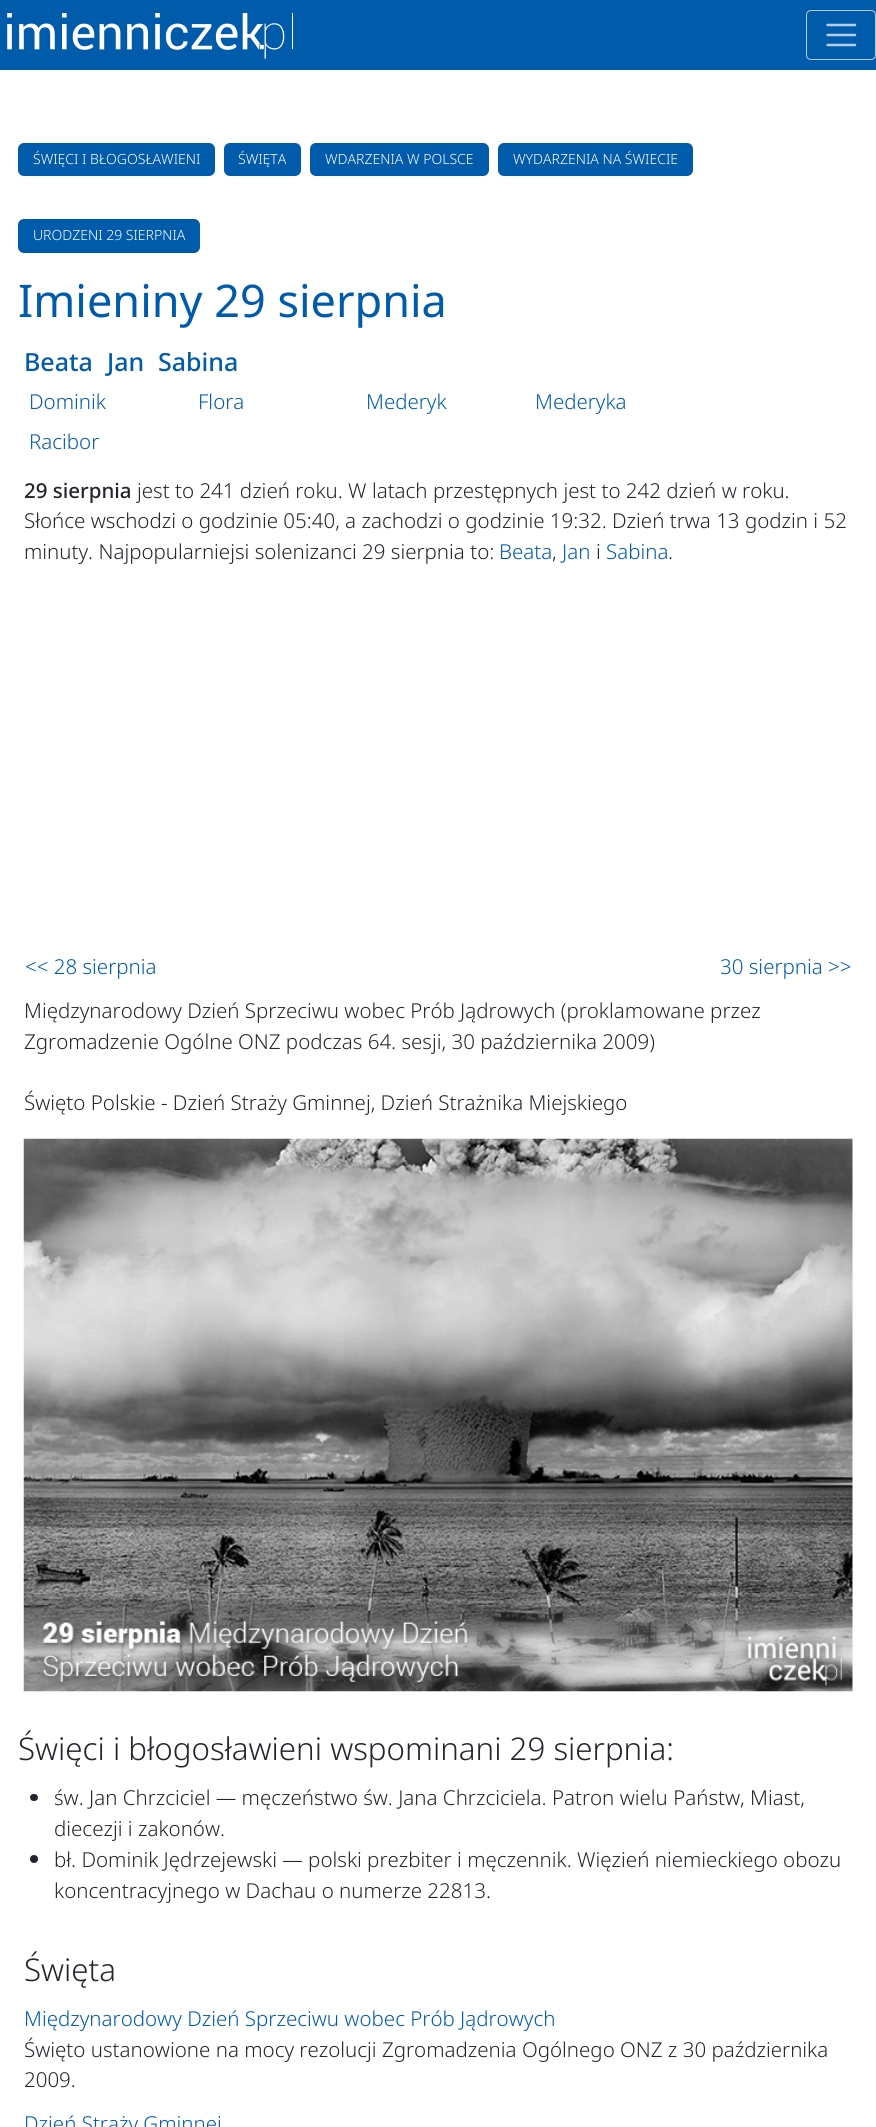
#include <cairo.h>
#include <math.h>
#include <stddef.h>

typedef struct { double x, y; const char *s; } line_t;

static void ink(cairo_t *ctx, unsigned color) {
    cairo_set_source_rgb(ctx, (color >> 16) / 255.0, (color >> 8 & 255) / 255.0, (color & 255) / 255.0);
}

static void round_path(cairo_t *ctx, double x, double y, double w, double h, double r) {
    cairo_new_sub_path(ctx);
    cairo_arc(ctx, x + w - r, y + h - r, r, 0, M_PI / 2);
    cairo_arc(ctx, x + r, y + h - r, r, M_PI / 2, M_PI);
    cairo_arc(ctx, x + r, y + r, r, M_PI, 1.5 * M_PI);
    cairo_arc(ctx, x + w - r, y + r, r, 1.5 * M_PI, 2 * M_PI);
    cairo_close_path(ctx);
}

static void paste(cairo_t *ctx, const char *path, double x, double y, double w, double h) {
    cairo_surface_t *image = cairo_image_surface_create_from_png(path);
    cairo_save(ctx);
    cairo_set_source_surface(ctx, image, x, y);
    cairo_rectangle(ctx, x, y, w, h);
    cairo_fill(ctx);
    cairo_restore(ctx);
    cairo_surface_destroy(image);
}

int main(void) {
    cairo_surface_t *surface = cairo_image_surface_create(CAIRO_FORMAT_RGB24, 876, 2127);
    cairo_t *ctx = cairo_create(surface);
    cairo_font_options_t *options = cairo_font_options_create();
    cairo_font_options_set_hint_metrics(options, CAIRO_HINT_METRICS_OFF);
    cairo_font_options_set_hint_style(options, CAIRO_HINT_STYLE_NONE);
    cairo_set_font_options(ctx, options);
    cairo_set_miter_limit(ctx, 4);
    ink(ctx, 0xFFFFFF);
    cairo_paint(ctx);
    ink(ctx, 0x005BAA);
    cairo_rectangle(ctx, 0, 0, 876, 70);
    cairo_fill(ctx);
    paste(ctx, "media/1.png", 7, 13, 286, 46);
    round_path(ctx, 806.5, 10.5, 69, 49, 4.5);
    ink(ctx, 0xB3CEE6);
    cairo_set_line_width(ctx, 1);
    cairo_stroke(ctx);
    cairo_new_path(ctx);
    cairo_move_to(ctx, 827.5, 25);
    cairo_line_to(ctx, 855, 25);
    cairo_move_to(ctx, 827.5, 35);
    cairo_line_to(ctx, 855, 35);
    cairo_move_to(ctx, 827.5, 45);
    cairo_line_to(ctx, 855, 45);
    cairo_set_line_width(ctx, 2.5);
    cairo_set_line_cap(ctx, CAIRO_LINE_CAP_ROUND);
    cairo_stroke(ctx);
    ink(ctx, 0x005BAA);
    round_path(ctx, 18, 143, 197, 33, 6);
    cairo_fill(ctx);
    cairo_select_font_face(ctx, "Noto Sans Light", CAIRO_FONT_SLANT_NORMAL, CAIRO_FONT_WEIGHT_NORMAL);
    cairo_set_font_size(ctx, 14);
    ink(ctx, 0xFFFFFF);
    cairo_move_to(ctx, 33, 164);
    cairo_show_text(ctx, "ŚWIĘCI I BŁOGOSŁAWIENI");
    ink(ctx, 0x005BAA);
    round_path(ctx, 224, 143, 77, 33, 6);
    cairo_fill(ctx);
    ink(ctx, 0xFFFFFF);
    cairo_move_to(ctx, 238, 164);
    cairo_show_text(ctx, "ŚWIĘTA");
    ink(ctx, 0x005BAA);
    round_path(ctx, 310, 143, 179, 33, 6);
    cairo_fill(ctx);
    ink(ctx, 0xFFFFFF);
    cairo_move_to(ctx, 325, 164);
    cairo_show_text(ctx, "WDARZENIA W POLSCE");
    ink(ctx, 0x005BAA);
    round_path(ctx, 498, 143, 195, 33, 6);
    cairo_fill(ctx);
    ink(ctx, 0xFFFFFF);
    cairo_move_to(ctx, 513, 164);
    cairo_show_text(ctx, "WYDARZENIA NA ŚWIECIE");
    ink(ctx, 0x005BAA);
    round_path(ctx, 18, 219, 182, 34, 6);
    cairo_fill(ctx);
    ink(ctx, 0xFFFFFF);
    cairo_move_to(ctx, 33, 240);
    cairo_show_text(ctx, "URODZENI 29 SIERPNIA");
    cairo_select_font_face(ctx, "Noto Sans", CAIRO_FONT_SLANT_NORMAL, CAIRO_FONT_WEIGHT_NORMAL);
    cairo_set_font_size(ctx, 45);
    ink(ctx, 0x005BAA);
    cairo_move_to(ctx, 18, 317);
    cairo_show_text(ctx, "Imieniny 29 sierpnia");
    cairo_select_font_face(ctx, "Noto Sans Medium", CAIRO_FONT_SLANT_NORMAL, CAIRO_FONT_WEIGHT_NORMAL);
    cairo_set_font_size(ctx, 25);
    {
        static const line_t items[] = {
            {24, 371, "Beata"},
            {107, 371, "Jan"},
            {158, 371, "Sabina"},
        };
        for (size_t i = 0; i < sizeof items / sizeof *items; i++) {
            cairo_move_to(ctx, items[i].x, items[i].y);
            cairo_show_text(ctx, items[i].s);
        }
    }
    cairo_select_font_face(ctx, "Noto Sans Light", CAIRO_FONT_SLANT_NORMAL, CAIRO_FONT_WEIGHT_NORMAL);
    cairo_set_font_size(ctx, 20.5);
    {
        static const line_t items[] = {
            {29, 409, "Dominik"},
            {198, 409, "Flora"},
            {366, 409, "Mederyk"},
            {535, 409, "Mederyka"},
            {29, 449, "Racibor"},
        };
        for (size_t i = 0; i < sizeof items / sizeof *items; i++) {
            cairo_move_to(ctx, items[i].x, items[i].y);
            cairo_show_text(ctx, items[i].s);
        }
    }
    cairo_select_font_face(ctx, "Noto Sans Medium", CAIRO_FONT_SLANT_NORMAL, CAIRO_FONT_WEIGHT_NORMAL);
    ink(ctx, 0x22252C);
    cairo_move_to(ctx, 24, 498);
    cairo_show_text(ctx, "29 sierpnia");
    cairo_select_font_face(ctx, "Noto Sans Light", CAIRO_FONT_SLANT_NORMAL, CAIRO_FONT_WEIGHT_NORMAL);
    {
        static const line_t items[] = {
            {137, 498, "jest to 241 dzień roku. W latach przestępnych jest to 242 dzień w roku."},
            {24, 528, "Słońce wschodzi o godzinie 05:40, a zachodzi o godzinie 19:32. Dzień trwa 13 godzin i 52"},
            {24, 559, "minuty. Najpopularniejsi solenizanci 29 sierpnia to:"},
        };
        for (size_t i = 0; i < sizeof items / sizeof *items; i++) {
            cairo_move_to(ctx, items[i].x, items[i].y);
            cairo_show_text(ctx, items[i].s);
        }
    }
    ink(ctx, 0x005BAA);
    cairo_move_to(ctx, 499, 559);
    cairo_show_text(ctx, "Beata");
    ink(ctx, 0x22252C);
    cairo_move_to(ctx, 552, 559);
    cairo_show_text(ctx, ",");
    ink(ctx, 0x005BAA);
    cairo_move_to(ctx, 562, 559);
    cairo_show_text(ctx, "Jan");
    ink(ctx, 0x22252C);
    cairo_move_to(ctx, 596, 559);
    cairo_show_text(ctx, "i");
    ink(ctx, 0x005BAA);
    cairo_move_to(ctx, 606, 559);
    cairo_show_text(ctx, "Sabina");
    ink(ctx, 0x22252C);
    cairo_move_to(ctx, 668, 559);
    cairo_show_text(ctx, ".");
    ink(ctx, 0x005BAA);
    cairo_move_to(ctx, 25, 974);
    cairo_show_text(ctx, "<< 28 sierpnia");
    cairo_move_to(ctx, 720, 974);
    cairo_show_text(ctx, "30 sierpnia >>");
    ink(ctx, 0x22252C);
    {
        static const line_t items[] = {
            {24, 1018, "Międzynarodowy Dzień Sprzeciwu wobec Prób Jądrowych (proklamowane przez"},
            {24, 1049, "Zgromadzenie Ogólne ONZ podczas 64. sesji, 30 października 2009)"},
            {24, 1110, "Święto Polskie - Dzień Straży Gminnej, Dzień Strażnika Miejskiego"},
        };
        for (size_t i = 0; i < sizeof items / sizeof *items; i++) {
            cairo_move_to(ctx, items[i].x, items[i].y);
            cairo_show_text(ctx, items[i].s);
        }
    }
    paste(ctx, "media/2.png", 23, 1138, 830, 554);
    cairo_set_font_size(ctx, 31.25);
    cairo_move_to(ctx, 18, 1760);
    cairo_show_text(ctx, "Święci i błogosławieni wspominani 29 sierpnia:");
    round_path(ctx, 30, 1794, 8, 7, 3.5);
    cairo_fill(ctx);
    cairo_set_font_size(ctx, 20.5);
    cairo_move_to(ctx, 54, 1805);
    cairo_show_text(ctx, "św. Jan Chrzciciel — męczeństwo św. Jana Chrzciciela. Patron wielu Państw, Miast,");
    cairo_move_to(ctx, 54, 1836);
    cairo_show_text(ctx, "diecezji i zakonów.");
    cairo_new_path(ctx);
    cairo_arc(ctx, 34, 1859, 4, 0, 2 * M_PI);
    cairo_fill(ctx);
    cairo_move_to(ctx, 54, 1867);
    cairo_show_text(ctx, "bł. Dominik Jędrzejewski — polski prezbiter i męczennik. Więzień niemieckiego obozu");
    cairo_move_to(ctx, 54, 1898);
    cairo_show_text(ctx, "koncentracyjnego w Dachau o numerze 22813.");
    cairo_set_font_size(ctx, 31.25);
    cairo_move_to(ctx, 24, 1981);
    cairo_show_text(ctx, "Święta");
    cairo_set_font_size(ctx, 20.5);
    ink(ctx, 0x005BAA);
    cairo_move_to(ctx, 24, 2026);
    cairo_show_text(ctx, "Międzynarodowy Dzień Sprzeciwu wobec Prób Jądrowych");
    ink(ctx, 0x22252C);
    cairo_move_to(ctx, 24, 2057);
    cairo_show_text(ctx, "Święto ustanowione na mocy rezolucji Zgromadzenia Ogólnego ONZ z 30 października");
    cairo_move_to(ctx, 24, 2087);
    cairo_show_text(ctx, "2009.");
    ink(ctx, 0x005BAA);
    cairo_move_to(ctx, 24, 2131);
    cairo_show_text(ctx, "Dzień Straży Gminnej");
    cairo_surface_write_to_png(surface, "image.png");
    cairo_font_options_destroy(options);
    cairo_destroy(ctx);
    cairo_surface_destroy(surface);
    return 0;
}
